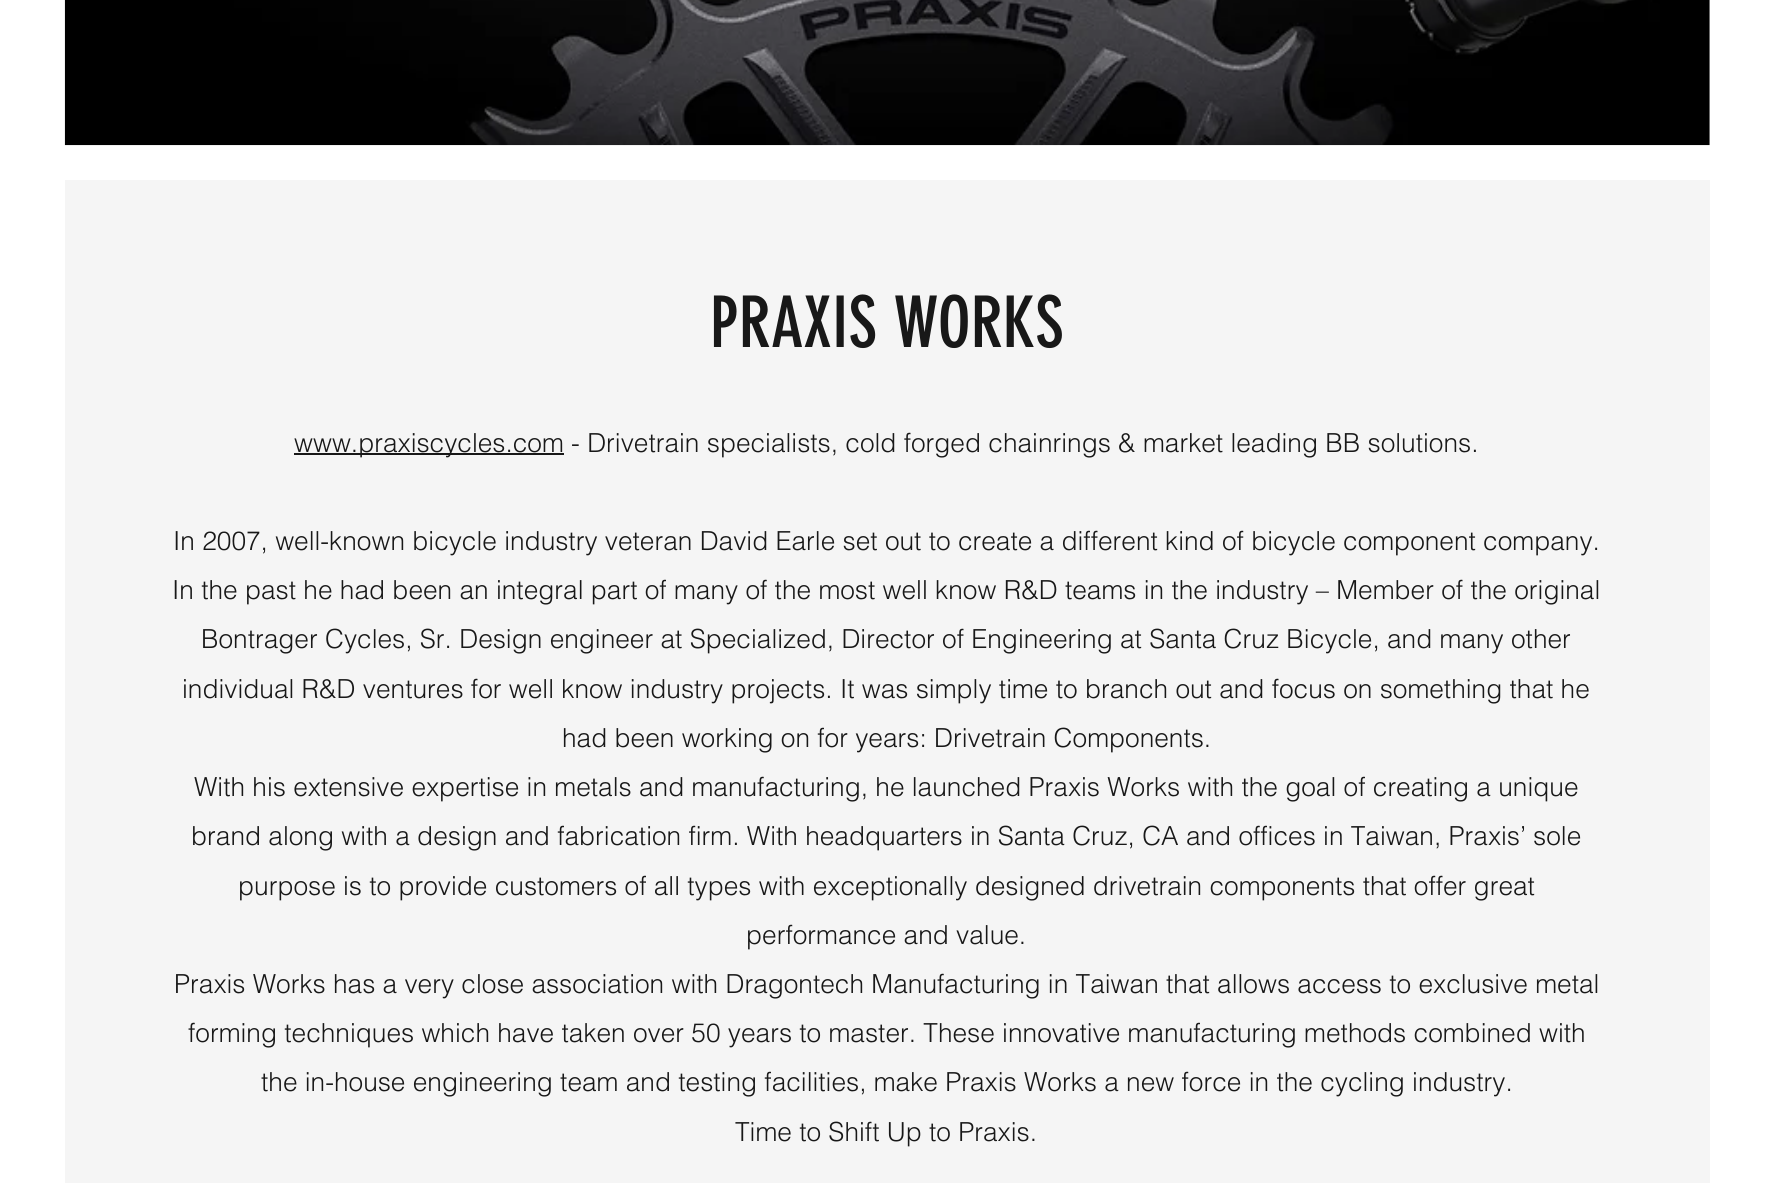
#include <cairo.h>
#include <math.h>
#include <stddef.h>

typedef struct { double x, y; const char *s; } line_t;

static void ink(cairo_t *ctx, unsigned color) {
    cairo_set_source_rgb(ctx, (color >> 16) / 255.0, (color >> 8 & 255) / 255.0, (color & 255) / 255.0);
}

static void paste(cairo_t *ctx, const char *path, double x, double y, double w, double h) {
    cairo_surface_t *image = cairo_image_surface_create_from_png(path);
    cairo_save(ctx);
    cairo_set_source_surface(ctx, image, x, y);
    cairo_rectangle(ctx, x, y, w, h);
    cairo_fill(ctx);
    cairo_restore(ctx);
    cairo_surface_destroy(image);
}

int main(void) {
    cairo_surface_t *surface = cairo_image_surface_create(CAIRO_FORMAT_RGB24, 1772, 1183);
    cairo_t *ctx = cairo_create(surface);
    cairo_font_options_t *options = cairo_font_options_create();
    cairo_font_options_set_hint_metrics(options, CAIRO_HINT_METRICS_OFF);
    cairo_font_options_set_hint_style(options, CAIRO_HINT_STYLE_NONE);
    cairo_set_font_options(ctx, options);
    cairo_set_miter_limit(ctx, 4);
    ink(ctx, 0xFFFFFF);
    cairo_paint(ctx);
    paste(ctx, "media/1.png", 64, 0, 1646, 146);
    ink(ctx, 0xF5F5F5);
    cairo_rectangle(ctx, 65, 180, 1645, 1003);
    cairo_fill(ctx);
    cairo_select_font_face(ctx, "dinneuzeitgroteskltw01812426", CAIRO_FONT_SLANT_NORMAL, CAIRO_FONT_WEIGHT_NORMAL);
    cairo_set_font_size(ctx, 70);
    ink(ctx, 0x181818);
    cairo_move_to(ctx, 710, 347);
    cairo_show_text(ctx, "PRAXIS WORKS");
    cairo_rectangle(ctx, 294, 453, 270, 2);
    cairo_fill(ctx);
    cairo_select_font_face(ctx, "helvetica Light", CAIRO_FONT_SLANT_NORMAL, CAIRO_FONT_WEIGHT_NORMAL);
    cairo_set_font_size(ctx, 26.25);
    {
        static const line_t items[] = {
            {294, 452, "www.praxiscycles.com - Drivetrain specialists, cold forged chainrings & market leading BB solutions."},
            {173, 550, "In 2007, well-known bicycle industry veteran David Earle set out to create a different kind of bicycle component company."},
            {172, 599, "In the past he had been an integral part of many of the most well know R&D teams in the industry – Member of the original"},
            {201, 648, "Bontrager Cycles, Sr. Design engineer at Specialized, Director of Engineering at Santa Cruz Bicycle, and many other"},
            {182, 698, "individual R&D ventures for well know industry projects. It was simply time to branch out and focus on something that he"},
            {562, 747, "had been working on for years: Drivetrain Components."},
            {194, 796, "With his extensive expertise in metals and manufacturing, he launched Praxis Works with the goal of creating a unique"},
            {191, 845, "brand along with a design and fabrication firm. With headquarters in Santa Cruz, CA and offices in Taiwan, Praxis’ sole"},
            {238, 895, "purpose is to provide customers of all types with exceptionally designed drivetrain components that offer great"},
            {746, 944, "performance and value."},
            {174, 993, "Praxis Works has a very close association with Dragontech Manufacturing in Taiwan that allows access to exclusive metal"},
            {188, 1042, "forming techniques which have taken over 50 years to master. These innovative manufacturing methods combined with"},
            {261, 1091, "the in-house engineering team and testing facilities, make Praxis Works a new force in the cycling industry."},
            {735, 1141, "Time to Shift Up to Praxis."},
        };
        for (size_t i = 0; i < sizeof items / sizeof *items; i++) {
            cairo_move_to(ctx, items[i].x, items[i].y);
            cairo_show_text(ctx, items[i].s);
        }
    }
    cairo_surface_write_to_png(surface, "image.png");
    cairo_font_options_destroy(options);
    cairo_destroy(ctx);
    cairo_surface_destroy(surface);
    return 0;
}
